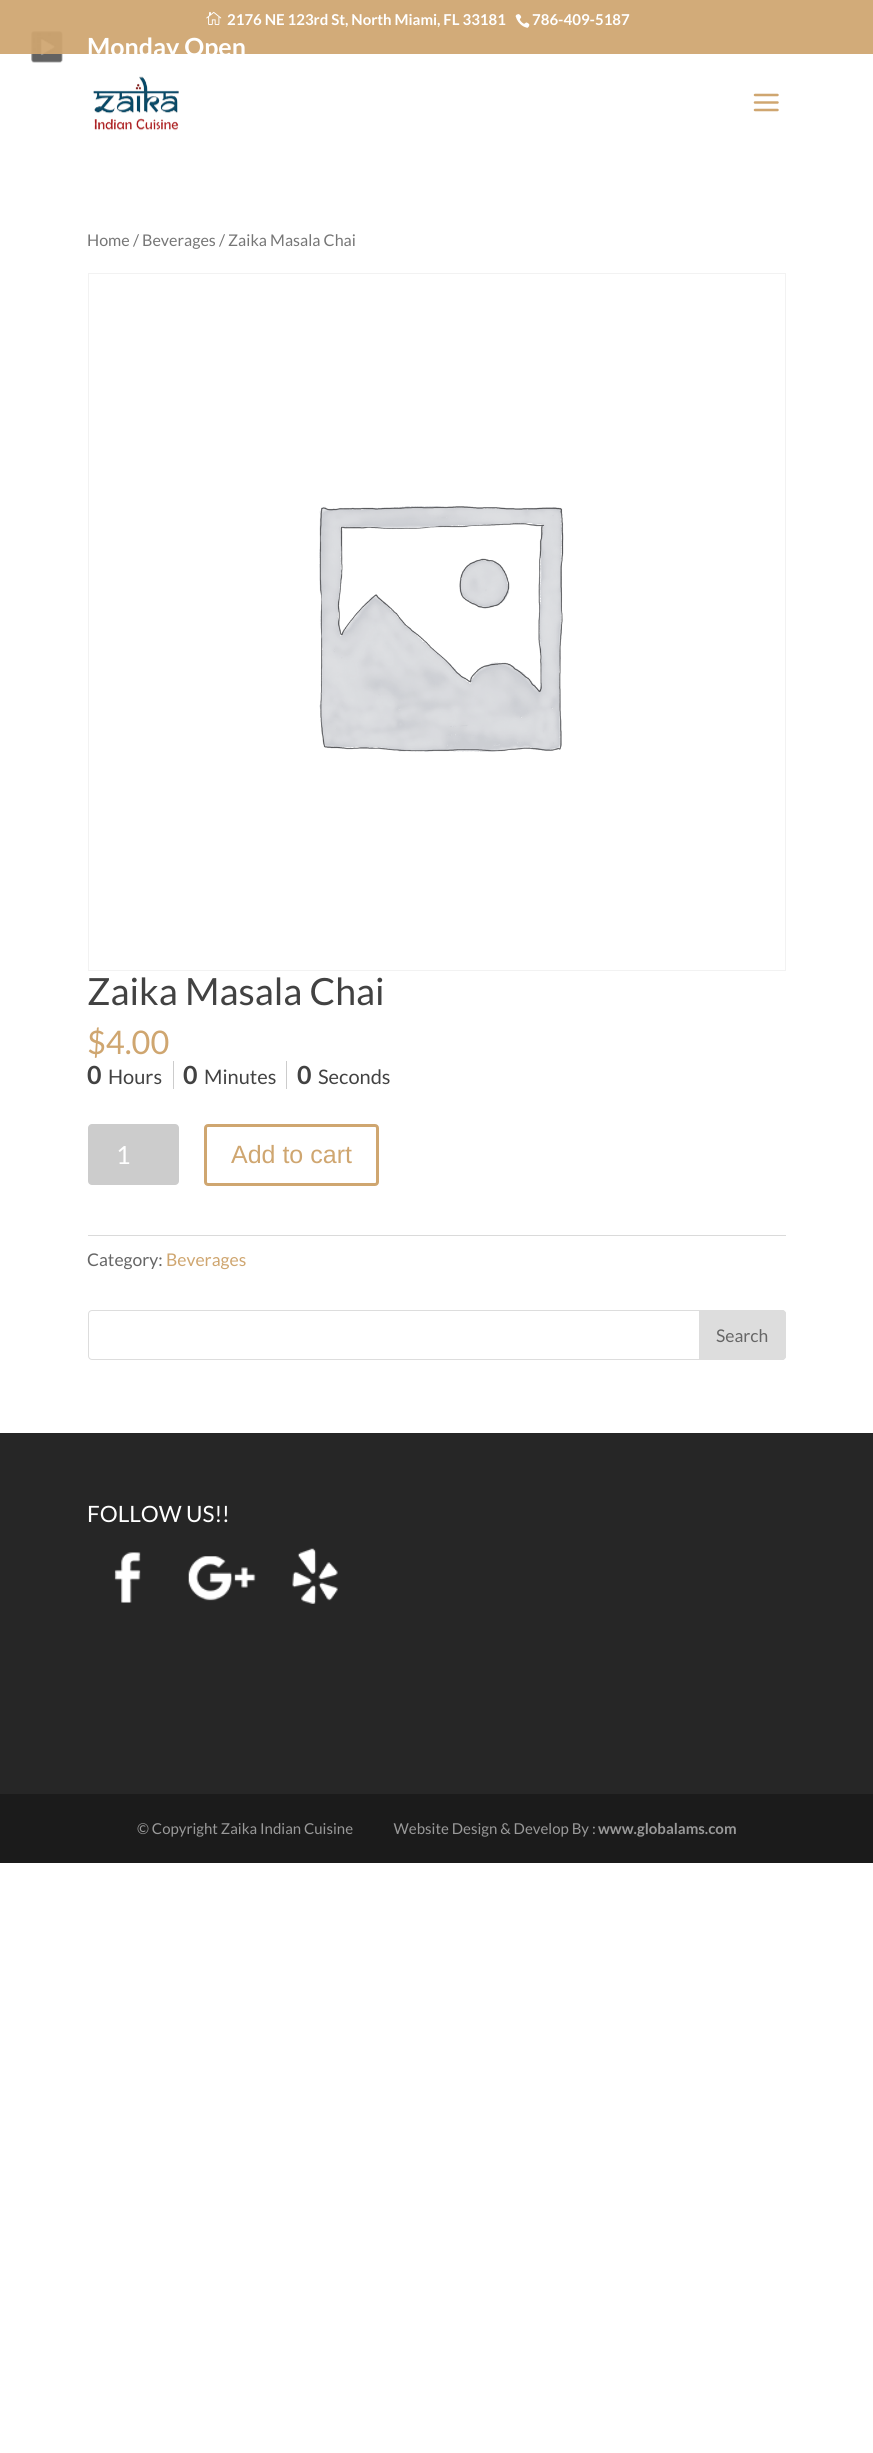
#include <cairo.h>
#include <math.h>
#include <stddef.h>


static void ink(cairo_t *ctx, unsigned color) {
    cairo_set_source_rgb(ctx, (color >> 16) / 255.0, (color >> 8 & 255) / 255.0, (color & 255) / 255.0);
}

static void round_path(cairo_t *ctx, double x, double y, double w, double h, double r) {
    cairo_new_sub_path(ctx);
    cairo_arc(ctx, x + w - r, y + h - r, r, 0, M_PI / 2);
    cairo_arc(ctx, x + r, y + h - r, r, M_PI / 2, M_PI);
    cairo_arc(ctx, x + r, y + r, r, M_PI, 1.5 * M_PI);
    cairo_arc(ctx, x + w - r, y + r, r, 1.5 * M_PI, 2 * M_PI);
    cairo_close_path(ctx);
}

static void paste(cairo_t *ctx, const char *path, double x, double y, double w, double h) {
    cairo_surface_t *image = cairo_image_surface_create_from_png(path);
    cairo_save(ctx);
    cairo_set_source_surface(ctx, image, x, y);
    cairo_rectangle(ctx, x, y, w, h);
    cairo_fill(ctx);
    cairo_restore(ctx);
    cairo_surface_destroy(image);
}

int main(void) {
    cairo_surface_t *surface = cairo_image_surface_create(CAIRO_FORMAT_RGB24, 873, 2453);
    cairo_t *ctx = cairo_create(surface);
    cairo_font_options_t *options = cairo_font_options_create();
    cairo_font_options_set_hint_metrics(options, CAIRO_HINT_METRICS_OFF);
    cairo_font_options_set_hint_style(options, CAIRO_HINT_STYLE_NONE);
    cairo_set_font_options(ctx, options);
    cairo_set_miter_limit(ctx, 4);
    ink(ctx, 0xFFFFFF);
    cairo_paint(ctx);
    paste(ctx, "media/1.png", 31, 31, 32, 32);
    cairo_set_source_rgba(ctx, 0.812, 0.651, 0.439, 0.93);
    cairo_rectangle(ctx, 0, 0, 873, 54);
    cairo_fill(ctx);
    paste(ctx, "media/2.png", 206, 11, 16, 14);
    cairo_select_font_face(ctx, "Lato", CAIRO_FONT_SLANT_NORMAL, CAIRO_FONT_WEIGHT_BOLD);
    cairo_set_font_size(ctx, 15);
    ink(ctx, 0xFFFFFF);
    cairo_move_to(ctx, 227, 25);
    cairo_show_text(ctx, "2176 NE 123rd St, North Miami, FL 33181");
    paste(ctx, "media/3.png", 515, 14, 15, 14);
    cairo_move_to(ctx, 532, 25);
    cairo_show_text(ctx, "786-409-5187");
    cairo_set_font_size(ctx, 25);
    cairo_move_to(ctx, 87, 56);
    cairo_show_text(ctx, "Monday Open");
    paste(ctx, "media/4.png", 93, 76, 86, 55);
    paste(ctx, "media/5.png", 753, 93, 26, 19);
    cairo_select_font_face(ctx, "Lato", CAIRO_FONT_SLANT_NORMAL, CAIRO_FONT_WEIGHT_NORMAL);
    cairo_set_font_size(ctx, 16.1);
    ink(ctx, 0x767676);
    cairo_move_to(ctx, 87, 246);
    cairo_show_text(ctx, "Home / Beverages / Zaika Masala Chai");
    cairo_rectangle(ctx, 88.5, 273.5, 697, 697);
    ink(ctx, 0xF2F2F2);
    cairo_set_line_width(ctx, 1);
    cairo_stroke(ctx);
    paste(ctx, "media/6.png", 319, 506, 245, 246);
    cairo_set_font_size(ctx, 37.5);
    ink(ctx, 0x424242);
    cairo_move_to(ctx, 87, 1005);
    cairo_show_text(ctx, "Zaika Masala Chai");
    cairo_set_font_size(ctx, 32.5);
    ink(ctx, 0xCFA670);
    cairo_move_to(ctx, 87, 1054);
    cairo_show_text(ctx, "$4.00");
    ink(ctx, 0xCCCCCC);
    cairo_rectangle(ctx, 173, 1061, 1, 28);
    cairo_fill(ctx);
    cairo_select_font_face(ctx, "Lato", CAIRO_FONT_SLANT_NORMAL, CAIRO_FONT_WEIGHT_BOLD);
    cairo_set_font_size(ctx, 25);
    ink(ctx, 0x424242);
    cairo_move_to(ctx, 87, 1084);
    cairo_show_text(ctx, "0");
    cairo_select_font_face(ctx, "Lato", CAIRO_FONT_SLANT_NORMAL, CAIRO_FONT_WEIGHT_NORMAL);
    cairo_set_font_size(ctx, 20);
    cairo_move_to(ctx, 108, 1084);
    cairo_show_text(ctx, "Hours");
    ink(ctx, 0xCCCCCC);
    cairo_rectangle(ctx, 286, 1061, 1, 28);
    cairo_fill(ctx);
    cairo_select_font_face(ctx, "Lato", CAIRO_FONT_SLANT_NORMAL, CAIRO_FONT_WEIGHT_BOLD);
    cairo_set_font_size(ctx, 25);
    ink(ctx, 0x424242);
    cairo_move_to(ctx, 183, 1084);
    cairo_show_text(ctx, "0");
    cairo_select_font_face(ctx, "Lato", CAIRO_FONT_SLANT_NORMAL, CAIRO_FONT_WEIGHT_NORMAL);
    cairo_set_font_size(ctx, 20);
    cairo_move_to(ctx, 204, 1084);
    cairo_show_text(ctx, "Minutes");
    cairo_select_font_face(ctx, "Lato", CAIRO_FONT_SLANT_NORMAL, CAIRO_FONT_WEIGHT_BOLD);
    cairo_set_font_size(ctx, 25);
    cairo_move_to(ctx, 297, 1084);
    cairo_show_text(ctx, "0");
    cairo_select_font_face(ctx, "Lato", CAIRO_FONT_SLANT_NORMAL, CAIRO_FONT_WEIGHT_NORMAL);
    cairo_set_font_size(ctx, 20);
    cairo_move_to(ctx, 318, 1084);
    cairo_show_text(ctx, "Seconds");
    ink(ctx, 0xCCCCCC);
    round_path(ctx, 88, 1124, 91, 61, 4);
    cairo_fill(ctx);
    cairo_set_font_size(ctx, 25);
    ink(ctx, 0xFFFFFF);
    cairo_move_to(ctx, 116, 1164);
    cairo_show_text(ctx, "1");
    round_path(ctx, 205.5, 1125.5, 172, 59, 2.5);
    ink(ctx, 0xCFA670);
    cairo_set_line_width(ctx, 3);
    cairo_stroke(ctx);
    cairo_select_font_face(ctx, "Liberation Sans", CAIRO_FONT_SLANT_NORMAL, CAIRO_FONT_WEIGHT_NORMAL);
    cairo_move_to(ctx, 231, 1163);
    cairo_show_text(ctx, "Add to cart");
    ink(ctx, 0xDADADA);
    cairo_rectangle(ctx, 88, 1235, 698, 1);
    cairo_fill(ctx);
    cairo_select_font_face(ctx, "Lato", CAIRO_FONT_SLANT_NORMAL, CAIRO_FONT_WEIGHT_NORMAL);
    cairo_set_font_size(ctx, 17.5);
    ink(ctx, 0x666666);
    cairo_move_to(ctx, 87, 1266);
    cairo_show_text(ctx, "Category:");
    ink(ctx, 0xCFA670);
    cairo_move_to(ctx, 166, 1266);
    cairo_show_text(ctx, "Beverages");
    round_path(ctx, 88.5, 1310.5, 697, 49, 3.5);
    ink(ctx, 0xDDDDDD);
    cairo_set_line_width(ctx, 1);
    cairo_stroke(ctx);
    cairo_new_path(ctx);
    cairo_move_to(ctx, 699.5, 1310.5);
    cairo_line_to(ctx, 782, 1310.5);
    cairo_curve_to(ctx, 784, 1310.5, 785.5, 1312, 785.5, 1314);
    cairo_line_to(ctx, 785.5, 1356);
    cairo_curve_to(ctx, 785.5, 1358, 784, 1359.5, 782, 1359.5);
    cairo_line_to(ctx, 699.5, 1359.5);
    cairo_close_path(ctx);
    cairo_fill_preserve(ctx);
    cairo_stroke(ctx);
    ink(ctx, 0x666666);
    cairo_move_to(ctx, 716, 1342);
    cairo_show_text(ctx, "Search");
    ink(ctx, 0x262626);
    cairo_rectangle(ctx, 0, 1433, 873, 361);
    cairo_fill(ctx);
    cairo_set_font_size(ctx, 22.5);
    ink(ctx, 0xFFFFFF);
    cairo_move_to(ctx, 87, 1522);
    cairo_show_text(ctx, "FOLLOW US!!");
    paste(ctx, "media/7.png", 114, 1552, 27, 51);
    paste(ctx, "media/8.png", 188, 1556, 68, 45);
    paste(ctx, "media/9.png", 292, 1548, 46, 56);
    ink(ctx, 0x1B1B1B);
    cairo_rectangle(ctx, 0, 1794, 873, 69);
    cairo_fill(ctx);
    cairo_set_font_size(ctx, 15);
    ink(ctx, 0x999999);
    cairo_move_to(ctx, 137, 1834);
    cairo_show_text(ctx, "© Copyright Zaika Indian Cuisine              Website Design & Develop By :");
    cairo_select_font_face(ctx, "Lato", CAIRO_FONT_SLANT_NORMAL, CAIRO_FONT_WEIGHT_BOLD);
    cairo_move_to(ctx, 598, 1834);
    cairo_show_text(ctx, "www.globalams.com");
    cairo_surface_write_to_png(surface, "image.png");
    cairo_font_options_destroy(options);
    cairo_destroy(ctx);
    cairo_surface_destroy(surface);
    return 0;
}
